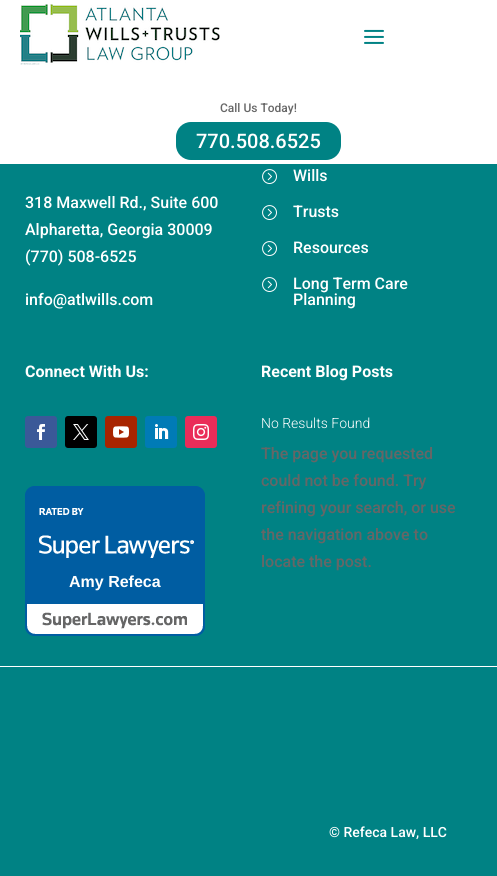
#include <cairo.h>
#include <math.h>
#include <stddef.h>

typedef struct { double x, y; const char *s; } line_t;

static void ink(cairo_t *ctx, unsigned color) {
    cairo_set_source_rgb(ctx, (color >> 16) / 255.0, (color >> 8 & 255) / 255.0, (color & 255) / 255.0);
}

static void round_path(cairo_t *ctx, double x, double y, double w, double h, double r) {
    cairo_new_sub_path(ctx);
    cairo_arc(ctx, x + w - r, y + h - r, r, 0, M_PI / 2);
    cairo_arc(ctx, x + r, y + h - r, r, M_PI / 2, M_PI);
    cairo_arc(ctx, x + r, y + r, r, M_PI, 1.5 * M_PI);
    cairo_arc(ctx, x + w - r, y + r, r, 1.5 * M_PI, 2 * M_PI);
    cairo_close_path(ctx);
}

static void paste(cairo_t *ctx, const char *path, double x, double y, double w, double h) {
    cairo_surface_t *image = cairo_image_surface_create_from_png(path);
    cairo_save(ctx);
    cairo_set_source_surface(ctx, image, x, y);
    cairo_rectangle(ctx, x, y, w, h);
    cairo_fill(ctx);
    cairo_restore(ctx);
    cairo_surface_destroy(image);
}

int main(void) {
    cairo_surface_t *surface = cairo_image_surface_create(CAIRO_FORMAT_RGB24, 497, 876);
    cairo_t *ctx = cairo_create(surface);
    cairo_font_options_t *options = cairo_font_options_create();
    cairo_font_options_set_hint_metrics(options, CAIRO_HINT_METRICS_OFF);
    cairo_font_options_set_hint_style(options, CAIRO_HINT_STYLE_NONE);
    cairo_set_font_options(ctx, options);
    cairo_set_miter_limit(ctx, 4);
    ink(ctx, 0xFFFFFF);
    cairo_paint(ctx);
    paste(ctx, "media/1.png", 20, 4, 200, 61);
    paste(ctx, "media/2.png", 364, 29, 20, 15);
    cairo_select_font_face(ctx, "Roboto Medium", CAIRO_FONT_SLANT_NORMAL, CAIRO_FONT_WEIGHT_NORMAL);
    cairo_set_font_size(ctx, 12);
    ink(ctx, 0x666666);
    cairo_move_to(ctx, 220, 112);
    cairo_show_text(ctx, "Call Us Today!");
    ink(ctx, 0x008284);
    round_path(ctx, 176, 122, 165, 38, 15);
    cairo_fill(ctx);
    cairo_set_font_size(ctx, 20);
    ink(ctx, 0xFFFFFF);
    cairo_move_to(ctx, 196, 148);
    cairo_show_text(ctx, "770.508.6525");
    ink(ctx, 0x008284);
    cairo_rectangle(ctx, 0, 164, 497, 502);
    cairo_fill(ctx);
    cairo_set_font_size(ctx, 16);
    ink(ctx, 0xFFFFFF);
    {
        static const line_t items[] = {
            {25, 208, "318 Maxwell Rd., Suite 600"},
            {25, 235, "Alpharetta, Georgia 30009"},
            {25, 262, "(770) 508-6525"},
            {25, 305, "info@atlwills.com"},
        };
        for (size_t i = 0; i < sizeof items / sizeof *items; i++) {
            cairo_move_to(ctx, items[i].x, items[i].y);
            cairo_show_text(ctx, items[i].s);
        }
    }
    paste(ctx, "media/3.png", 262, 169, 15, 15);
    cairo_move_to(ctx, 293, 181);
    cairo_show_text(ctx, "Wills");
    paste(ctx, "media/3.png", 262, 205, 15, 15);
    cairo_move_to(ctx, 293, 217);
    cairo_show_text(ctx, "Trusts");
    paste(ctx, "media/3.png", 262, 241, 15, 15);
    cairo_move_to(ctx, 293, 253);
    cairo_show_text(ctx, "Resources");
    paste(ctx, "media/3.png", 262, 277, 15, 15);
    cairo_move_to(ctx, 293, 289);
    cairo_show_text(ctx, "Long Term Care");
    cairo_move_to(ctx, 293, 305);
    cairo_show_text(ctx, "Planning");
    cairo_select_font_face(ctx, "Roboto", CAIRO_FONT_SLANT_NORMAL, CAIRO_FONT_WEIGHT_BOLD);
    cairo_move_to(ctx, 25, 377);
    cairo_show_text(ctx, "Connect With Us:");
    ink(ctx, 0x3B5998);
    round_path(ctx, 25, 416, 32, 32, 3);
    cairo_fill(ctx);
    paste(ctx, "media/4.png", 37, 424, 8, 16);
    ink(ctx, 0x000000);
    round_path(ctx, 65, 416, 32, 32, 3);
    cairo_fill(ctx);
    paste(ctx, "media/5.png", 73, 424, 16, 16);
    ink(ctx, 0xA82400);
    round_path(ctx, 105, 416, 32, 32, 3);
    cairo_fill(ctx);
    paste(ctx, "media/6.png", 113, 426, 16, 12);
    ink(ctx, 0x007BB6);
    round_path(ctx, 145, 416, 32, 32, 3);
    cairo_fill(ctx);
    paste(ctx, "media/7.png", 155, 424, 14, 15);
    ink(ctx, 0xEA2C59);
    round_path(ctx, 185, 416, 32, 32, 3);
    cairo_fill(ctx);
    paste(ctx, "media/8.png", 193, 424, 16, 16);
    paste(ctx, "media/9.png", 25, 486, 180, 150);
    cairo_select_font_face(ctx, "Liberation Sans", CAIRO_FONT_SLANT_NORMAL, CAIRO_FONT_WEIGHT_BOLD);
    ink(ctx, 0xFFFFFF);
    cairo_move_to(ctx, 69, 587);
    cairo_show_text(ctx, "Amy Refeca");
    cairo_select_font_face(ctx, "Roboto", CAIRO_FONT_SLANT_NORMAL, CAIRO_FONT_WEIGHT_BOLD);
    cairo_move_to(ctx, 261, 377);
    cairo_show_text(ctx, "Recent Blog Posts");
    cairo_select_font_face(ctx, "Roboto Light", CAIRO_FONT_SLANT_NORMAL, CAIRO_FONT_WEIGHT_NORMAL);
    cairo_set_font_size(ctx, 14);
    cairo_move_to(ctx, 261, 428);
    cairo_show_text(ctx, "No Results Found");
    cairo_select_font_face(ctx, "Roboto Medium", CAIRO_FONT_SLANT_NORMAL, CAIRO_FONT_WEIGHT_NORMAL);
    cairo_set_font_size(ctx, 16);
    ink(ctx, 0x666666);
    {
        static const line_t items[] = {
            {261, 459, "The page you requested"},
            {261, 486, "could not be found. Try"},
            {261, 513, "refining your search, or use"},
            {261, 540, "the navigation above to"},
            {261, 567, "locate the post."},
        };
        for (size_t i = 0; i < sizeof items / sizeof *items; i++) {
            cairo_move_to(ctx, items[i].x, items[i].y);
            cairo_show_text(ctx, items[i].s);
        }
    }
    ink(ctx, 0x008284);
    cairo_rectangle(ctx, 0, 667, 497, 209);
    cairo_fill(ctx);
    cairo_set_font_size(ctx, 14);
    ink(ctx, 0xFFFFFF);
    cairo_move_to(ctx, 329, 837);
    cairo_show_text(ctx, "© Refeca Law, LLC");
    cairo_surface_write_to_png(surface, "image.png");
    cairo_font_options_destroy(options);
    cairo_destroy(ctx);
    cairo_surface_destroy(surface);
    return 0;
}
